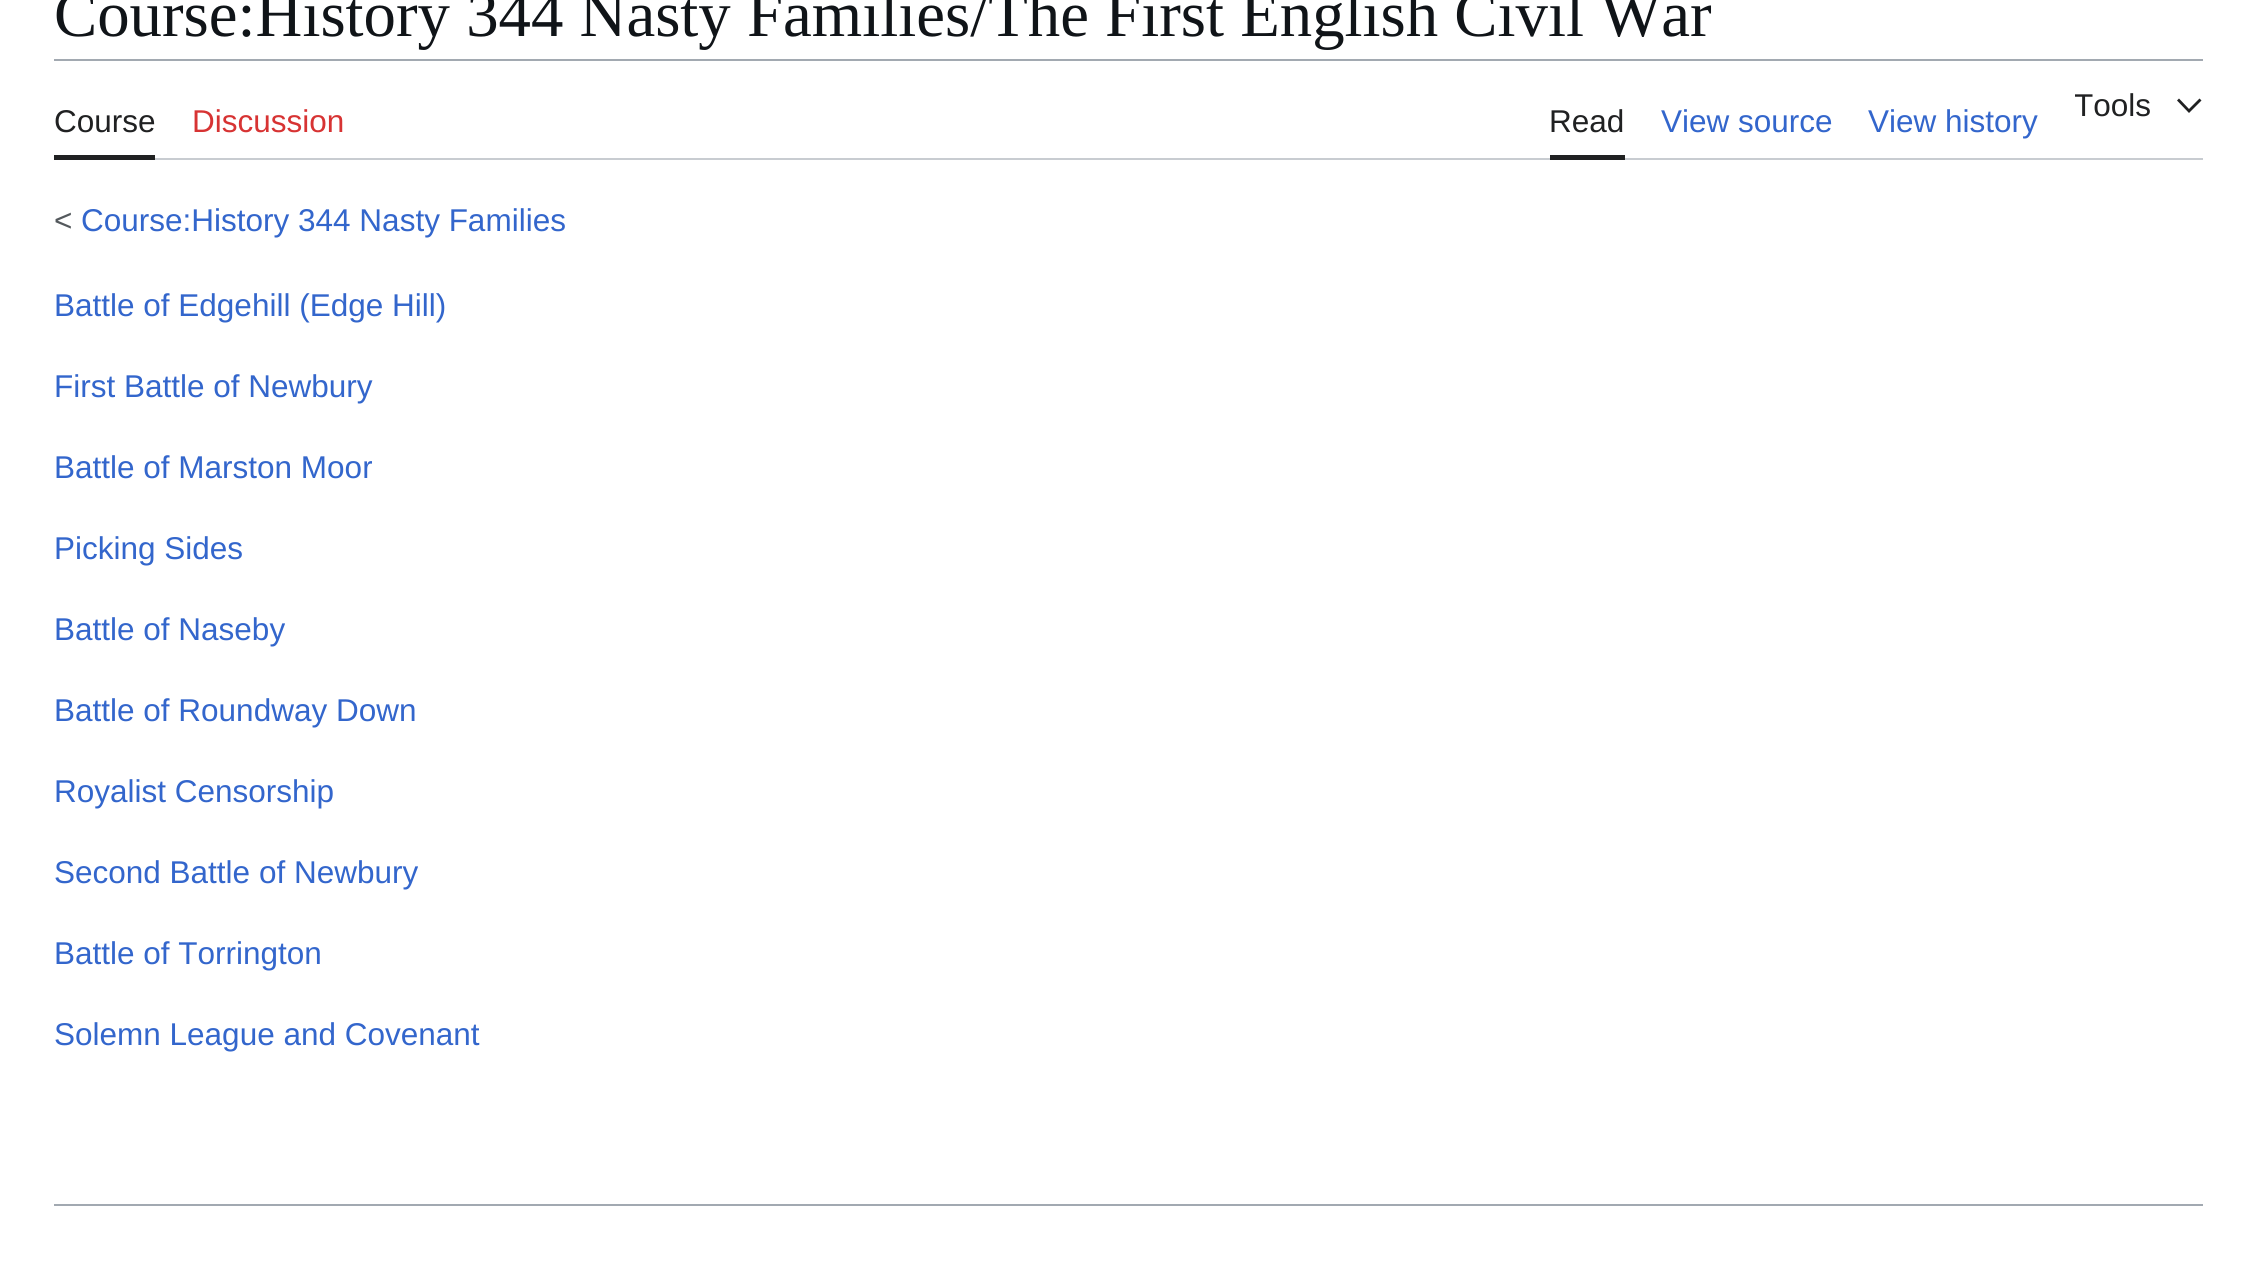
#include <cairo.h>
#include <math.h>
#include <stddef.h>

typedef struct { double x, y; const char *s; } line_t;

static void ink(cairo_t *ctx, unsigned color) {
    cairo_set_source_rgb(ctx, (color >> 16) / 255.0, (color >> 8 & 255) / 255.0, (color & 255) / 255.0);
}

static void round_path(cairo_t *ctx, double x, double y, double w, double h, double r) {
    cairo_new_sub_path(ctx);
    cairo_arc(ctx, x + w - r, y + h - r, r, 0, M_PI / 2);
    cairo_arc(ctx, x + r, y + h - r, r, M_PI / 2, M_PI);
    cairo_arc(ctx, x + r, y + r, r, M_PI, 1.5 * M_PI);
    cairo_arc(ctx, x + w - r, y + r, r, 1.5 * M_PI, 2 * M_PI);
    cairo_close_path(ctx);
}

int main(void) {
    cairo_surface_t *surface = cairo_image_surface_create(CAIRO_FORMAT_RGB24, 2256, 1261);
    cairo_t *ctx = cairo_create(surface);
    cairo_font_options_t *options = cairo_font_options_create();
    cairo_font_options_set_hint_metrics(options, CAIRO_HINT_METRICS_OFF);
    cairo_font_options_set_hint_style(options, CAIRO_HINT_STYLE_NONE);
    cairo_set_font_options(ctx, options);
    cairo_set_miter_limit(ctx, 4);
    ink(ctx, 0xFFFFFF);
    cairo_paint(ctx);
    cairo_select_font_face(ctx, "Liberation Serif", CAIRO_FONT_SLANT_NORMAL, CAIRO_FONT_WEIGHT_NORMAL);
    cairo_set_font_size(ctx, 64.8);
    ink(ctx, 0x101418);
    cairo_move_to(ctx, 54, 36);
    cairo_show_text(ctx, "Course:History 344 Nasty Families/The First English Civil War");
    ink(ctx, 0xA2A9B1);
    cairo_rectangle(ctx, 54, 59, 2149, 2);
    cairo_fill(ctx);
    ink(ctx, 0xC8CCD1);
    cairo_new_path(ctx);
    cairo_move_to(ctx, 54, 158);
    cairo_line_to(ctx, 54, 160);
    cairo_line_to(ctx, 2203, 160);
    cairo_line_to(ctx, 2203, 63);
    cairo_line_to(ctx, 2203, 158);
    cairo_close_path(ctx);
    cairo_fill(ctx);
    ink(ctx, 0x202122);
    cairo_rectangle(ctx, 54, 155, 101, 5);
    cairo_fill(ctx);
    cairo_select_font_face(ctx, "Liberation Sans", CAIRO_FONT_SLANT_NORMAL, CAIRO_FONT_WEIGHT_NORMAL);
    cairo_set_font_size(ctx, 31.5);
    cairo_move_to(ctx, 54, 132);
    cairo_show_text(ctx, "Course");
    ink(ctx, 0xD73333);
    cairo_move_to(ctx, 192, 132);
    cairo_show_text(ctx, "Discussion");
    cairo_save(ctx);
    round_path(ctx, 2075, 61, 128, 79, 5);
    cairo_clip(ctx);
    ink(ctx, 0x202122);
    cairo_move_to(ctx, 2074, 116);
    cairo_show_text(ctx, "Tools");
    cairo_restore(ctx);
    ink(ctx, 0x202122);
    cairo_new_path(ctx);
    cairo_move_to(ctx, 2199.5, 98.5);
    cairo_line_to(ctx, 2189, 109);
    cairo_line_to(ctx, 2179, 98.5);
    cairo_line_to(ctx, 2177, 100.5);
    cairo_line_to(ctx, 2189, 113);
    cairo_line_to(ctx, 2201.5, 100.5);
    cairo_close_path(ctx);
    cairo_fill(ctx);
    cairo_rectangle(ctx, 1550, 155, 75, 5);
    cairo_fill(ctx);
    cairo_move_to(ctx, 1549, 132);
    cairo_show_text(ctx, "Read");
    ink(ctx, 0x3366CC);
    cairo_move_to(ctx, 1661, 132);
    cairo_show_text(ctx, "View source");
    cairo_move_to(ctx, 1868, 132);
    cairo_show_text(ctx, "View history");
    ink(ctx, 0x54595D);
    cairo_move_to(ctx, 54, 231);
    cairo_show_text(ctx, "<");
    ink(ctx, 0x3366CC);
    {
        static const line_t items[] = {
            {81, 231, "Course:History 344 Nasty Families"},
            {54, 316, "Battle of Edgehill (Edge Hill)"},
            {54, 397, "First Battle of Newbury"},
            {54, 478, "Battle of Marston Moor"},
            {54, 559, "Picking Sides"},
            {54, 640, "Battle of Naseby"},
            {54, 721, "Battle of Roundway Down"},
            {54, 802, "Royalist Censorship"},
            {54, 883, "Second Battle of Newbury"},
            {54, 964, "Battle of Torrington"},
            {54, 1045, "Solemn League and Covenant"},
        };
        for (size_t i = 0; i < sizeof items / sizeof *items; i++) {
            cairo_move_to(ctx, items[i].x, items[i].y);
            cairo_show_text(ctx, items[i].s);
        }
    }
    ink(ctx, 0xA2A9B1);
    cairo_rectangle(ctx, 54, 1204, 2149, 2);
    cairo_fill(ctx);
    cairo_surface_write_to_png(surface, "image.png");
    cairo_font_options_destroy(options);
    cairo_destroy(ctx);
    cairo_surface_destroy(surface);
    return 0;
}
